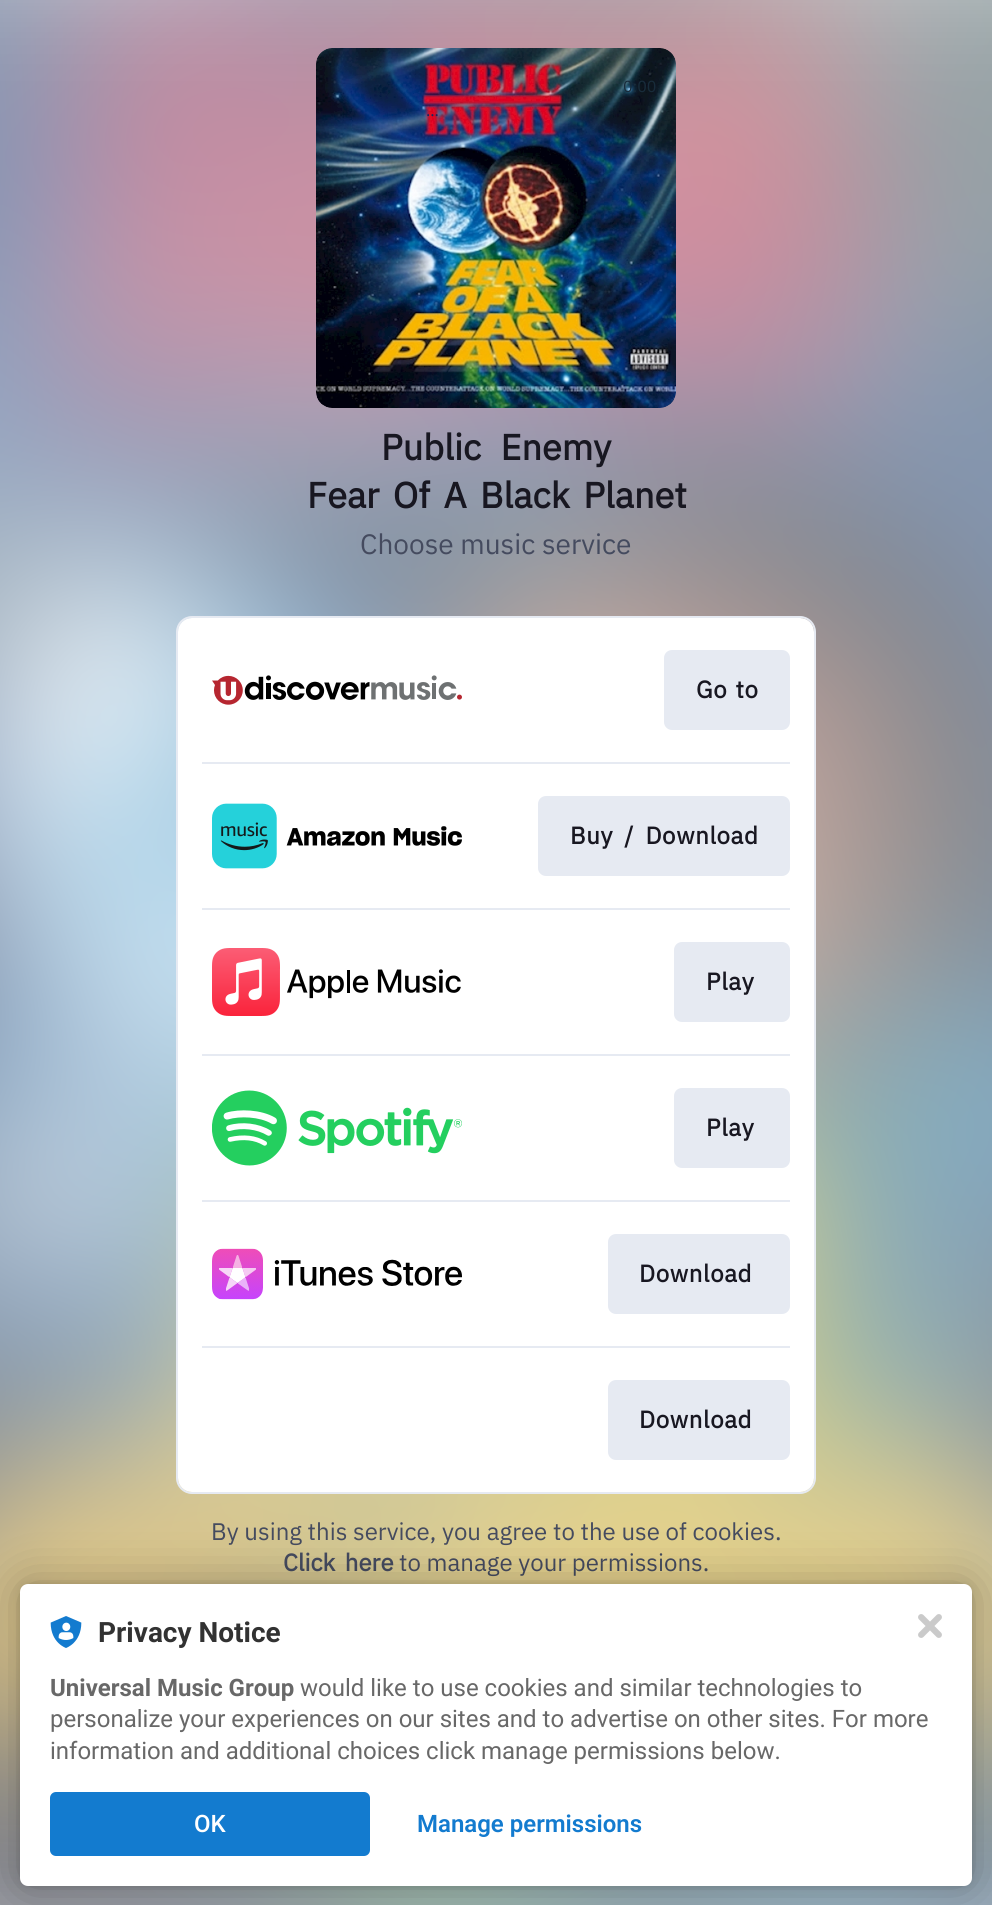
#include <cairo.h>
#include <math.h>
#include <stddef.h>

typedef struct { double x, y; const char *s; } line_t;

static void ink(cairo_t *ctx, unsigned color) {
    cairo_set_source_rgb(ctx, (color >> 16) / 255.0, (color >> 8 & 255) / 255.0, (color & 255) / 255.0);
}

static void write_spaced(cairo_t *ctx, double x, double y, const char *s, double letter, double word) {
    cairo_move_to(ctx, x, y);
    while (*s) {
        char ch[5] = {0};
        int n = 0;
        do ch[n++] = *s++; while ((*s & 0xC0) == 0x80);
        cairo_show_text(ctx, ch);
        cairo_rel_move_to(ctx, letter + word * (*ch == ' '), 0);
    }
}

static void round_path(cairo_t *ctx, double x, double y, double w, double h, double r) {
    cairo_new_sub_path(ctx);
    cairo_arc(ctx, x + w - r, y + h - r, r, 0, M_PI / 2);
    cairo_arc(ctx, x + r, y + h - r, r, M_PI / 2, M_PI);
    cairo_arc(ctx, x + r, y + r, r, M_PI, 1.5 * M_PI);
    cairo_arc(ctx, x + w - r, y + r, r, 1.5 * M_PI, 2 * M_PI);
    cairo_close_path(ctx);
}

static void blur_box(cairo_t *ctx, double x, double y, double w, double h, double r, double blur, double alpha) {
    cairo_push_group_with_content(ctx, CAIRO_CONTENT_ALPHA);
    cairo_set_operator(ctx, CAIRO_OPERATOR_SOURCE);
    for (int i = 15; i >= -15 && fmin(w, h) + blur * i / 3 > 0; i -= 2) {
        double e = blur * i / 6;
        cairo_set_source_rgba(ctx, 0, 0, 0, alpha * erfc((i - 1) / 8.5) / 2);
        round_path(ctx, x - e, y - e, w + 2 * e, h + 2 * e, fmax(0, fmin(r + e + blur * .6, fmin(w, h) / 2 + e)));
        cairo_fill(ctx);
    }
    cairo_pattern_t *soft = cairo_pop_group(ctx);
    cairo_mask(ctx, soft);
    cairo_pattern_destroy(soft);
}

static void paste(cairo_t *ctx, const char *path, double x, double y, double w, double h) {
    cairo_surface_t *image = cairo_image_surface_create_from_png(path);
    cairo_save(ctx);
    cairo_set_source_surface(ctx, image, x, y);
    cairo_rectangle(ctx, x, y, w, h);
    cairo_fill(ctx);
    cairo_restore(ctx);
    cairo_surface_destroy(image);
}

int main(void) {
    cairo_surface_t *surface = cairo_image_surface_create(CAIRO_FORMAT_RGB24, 992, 1905);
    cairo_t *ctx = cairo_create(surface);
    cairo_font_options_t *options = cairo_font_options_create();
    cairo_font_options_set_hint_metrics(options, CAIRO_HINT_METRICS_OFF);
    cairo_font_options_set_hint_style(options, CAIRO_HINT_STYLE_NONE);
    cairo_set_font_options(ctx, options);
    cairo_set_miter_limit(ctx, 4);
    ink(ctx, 0xFFFFFF);
    cairo_paint(ctx);
    paste(ctx, "media/1.png", 0, 0, 992, 1905);
    paste(ctx, "media/2.png", 316, 48, 360, 360);
    cairo_select_font_face(ctx, "IBM Plex Sans", CAIRO_FONT_SLANT_NORMAL, CAIRO_FONT_WEIGHT_NORMAL);
    cairo_set_font_size(ctx, 16);
    ink(ctx, 0x182C3B);
    cairo_move_to(ctx, 623, 92);
    cairo_show_text(ctx, "0:00");
    ink(ctx, 0x11285F);
    cairo_move_to(ctx, 426, 116);
    cairo_show_text(ctx, "…");
    cairo_select_font_face(ctx, "IBM Plex Sans", CAIRO_FONT_SLANT_NORMAL, CAIRO_FONT_WEIGHT_BOLD);
    cairo_set_font_size(ctx, 36);
    ink(ctx, 0x181721);
    write_spaced(ctx, 381, 460, "Public Enemy", 0, 11);
    write_spaced(ctx, 307, 508, "Fear Of A Black Planet", 0, 5);
    cairo_select_font_face(ctx, "IBM Plex Sans", CAIRO_FONT_SLANT_NORMAL, CAIRO_FONT_WEIGHT_NORMAL);
    cairo_set_font_size(ctx, 28);
    ink(ctx, 0x454B5F);
    cairo_move_to(ctx, 360, 554);
    cairo_show_text(ctx, "Choose music service");
    round_path(ctx, 177, 617, 638, 876, 15);
    ink(ctx, 0xE6EAF2);
    cairo_stroke(ctx);
    ink(ctx, 0xFFFFFF);
    round_path(ctx, 178, 618, 636, 874, 14);
    cairo_fill(ctx);
    paste(ctx, "media/3.png", 212, 675, 250, 30);
    ink(ctx, 0xE6EAF2);
    round_path(ctx, 664, 650, 126, 80, 8);
    cairo_fill(ctx);
    cairo_select_font_face(ctx, "IBM Plex Sans", CAIRO_FONT_SLANT_NORMAL, CAIRO_FONT_WEIGHT_BOLD);
    cairo_set_font_size(ctx, 24);
    ink(ctx, 0x181721);
    write_spaced(ctx, 696, 698, "Go to", 0.6, 2);
    ink(ctx, 0xE6EAF2);
    cairo_rectangle(ctx, 202, 762, 588, 2);
    cairo_fill(ctx);
    paste(ctx, "media/4.png", 212, 803, 250, 66);
    round_path(ctx, 538, 796, 252, 80, 8);
    cairo_fill(ctx);
    ink(ctx, 0x181721);
    write_spaced(ctx, 570, 844, "Buy / Download", 0.6, 5);
    ink(ctx, 0xE6EAF2);
    cairo_rectangle(ctx, 202, 908, 588, 2);
    cairo_fill(ctx);
    paste(ctx, "media/5.png", 212, 948, 249, 68);
    round_path(ctx, 674, 942, 116, 80, 8);
    cairo_fill(ctx);
    ink(ctx, 0x181721);
    write_spaced(ctx, 706, 990, "Play", 0.6, 0);
    ink(ctx, 0xE6EAF2);
    cairo_rectangle(ctx, 202, 1054, 588, 2);
    cairo_fill(ctx);
    paste(ctx, "media/6.png", 212, 1090, 250, 76);
    round_path(ctx, 674, 1088, 116, 80, 8);
    cairo_fill(ctx);
    ink(ctx, 0x181721);
    write_spaced(ctx, 706, 1136, "Play", 0.6, 0);
    ink(ctx, 0xE6EAF2);
    cairo_rectangle(ctx, 202, 1200, 588, 2);
    cairo_fill(ctx);
    paste(ctx, "media/7.png", 212, 1248, 250, 52);
    round_path(ctx, 608, 1234, 182, 80, 8);
    cairo_fill(ctx);
    ink(ctx, 0x181721);
    write_spaced(ctx, 639, 1282, "Download", 0.6, 0);
    ink(ctx, 0xE6EAF2);
    cairo_rectangle(ctx, 202, 1346, 588, 2);
    cairo_fill(ctx);
    round_path(ctx, 608, 1380, 182, 80, 8);
    cairo_fill(ctx);
    ink(ctx, 0x181721);
    write_spaced(ctx, 639, 1428, "Download", 0.6, 0);
    cairo_select_font_face(ctx, "IBM Plex Sans", CAIRO_FONT_SLANT_NORMAL, CAIRO_FONT_WEIGHT_NORMAL);
    ink(ctx, 0x454B5F);
    cairo_move_to(ctx, 211, 1540);
    cairo_show_text(ctx, "By using this service, you agree to the use of cookies.");
    cairo_select_font_face(ctx, "IBM Plex Sans", CAIRO_FONT_SLANT_NORMAL, CAIRO_FONT_WEIGHT_BOLD);
    write_spaced(ctx, 283, 1571, "Click here", 0, 4);
    cairo_select_font_face(ctx, "IBM Plex Sans", CAIRO_FONT_SLANT_NORMAL, CAIRO_FONT_WEIGHT_NORMAL);
    cairo_move_to(ctx, 399, 1571);
    cairo_show_text(ctx, "to manage your permissions.");
    ink(ctx, 0x000000);
    blur_box(ctx, 20, 1584, 952, 302, 8, 4, 0.12);
    blur_box(ctx, 20, 1584, 952, 302, 8, 24, 0.3);
    ink(ctx, 0xFFFFFF);
    round_path(ctx, 20, 1584, 952, 302, 8);
    cairo_fill(ctx);
    paste(ctx, "media/8.png", 50, 1616, 32, 32);
    cairo_select_font_face(ctx, "Roboto", CAIRO_FONT_SLANT_NORMAL, CAIRO_FONT_WEIGHT_BOLD);
    cairo_set_font_size(ctx, 28);
    ink(ctx, 0x323232);
    cairo_move_to(ctx, 98, 1642);
    cairo_show_text(ctx, "Privacy Notice");
    cairo_set_font_size(ctx, 24);
    ink(ctx, 0x686868);
    cairo_move_to(ctx, 50, 1696);
    cairo_show_text(ctx, "Universal Music Group");
    cairo_select_font_face(ctx, "Roboto", CAIRO_FONT_SLANT_NORMAL, CAIRO_FONT_WEIGHT_NORMAL);
    {
        static const line_t items[] = {
            {300, 1696, "would like to use cookies and similar technologies to"},
            {50, 1727, "personalize your experiences on our sites and to advertise on other sites. For more"},
            {50, 1759, "information and additional choices click manage permissions below."},
        };
        for (size_t i = 0; i < sizeof items / sizeof *items; i++) {
            cairo_move_to(ctx, items[i].x, items[i].y);
            cairo_show_text(ctx, items[i].s);
        }
    }
    ink(ctx, 0x137BCF);
    round_path(ctx, 50, 1792, 320, 64, 6);
    cairo_fill(ctx);
    cairo_select_font_face(ctx, "Roboto Medium", CAIRO_FONT_SLANT_NORMAL, CAIRO_FONT_WEIGHT_NORMAL);
    ink(ctx, 0xFFFFFF);
    cairo_move_to(ctx, 194, 1832);
    cairo_show_text(ctx, "OK");
    cairo_select_font_face(ctx, "Roboto SemiBold", CAIRO_FONT_SLANT_NORMAL, CAIRO_FONT_WEIGHT_NORMAL);
    ink(ctx, 0x137BCF);
    cairo_move_to(ctx, 417, 1832);
    cairo_show_text(ctx, "Manage permissions");
    paste(ctx, "media/9.png", 918, 1614, 24, 24);
    cairo_surface_write_to_png(surface, "image.png");
    cairo_font_options_destroy(options);
    cairo_destroy(ctx);
    cairo_surface_destroy(surface);
    return 0;
}
